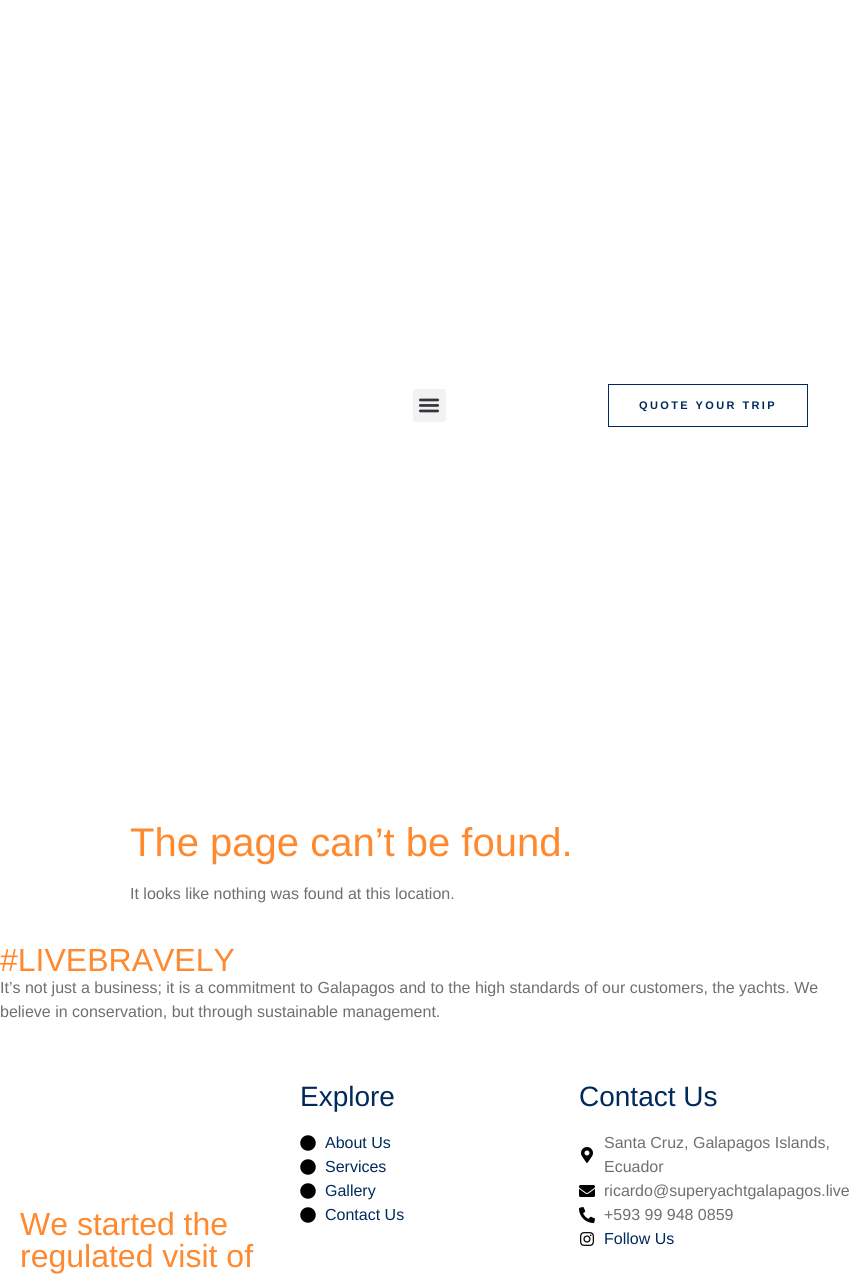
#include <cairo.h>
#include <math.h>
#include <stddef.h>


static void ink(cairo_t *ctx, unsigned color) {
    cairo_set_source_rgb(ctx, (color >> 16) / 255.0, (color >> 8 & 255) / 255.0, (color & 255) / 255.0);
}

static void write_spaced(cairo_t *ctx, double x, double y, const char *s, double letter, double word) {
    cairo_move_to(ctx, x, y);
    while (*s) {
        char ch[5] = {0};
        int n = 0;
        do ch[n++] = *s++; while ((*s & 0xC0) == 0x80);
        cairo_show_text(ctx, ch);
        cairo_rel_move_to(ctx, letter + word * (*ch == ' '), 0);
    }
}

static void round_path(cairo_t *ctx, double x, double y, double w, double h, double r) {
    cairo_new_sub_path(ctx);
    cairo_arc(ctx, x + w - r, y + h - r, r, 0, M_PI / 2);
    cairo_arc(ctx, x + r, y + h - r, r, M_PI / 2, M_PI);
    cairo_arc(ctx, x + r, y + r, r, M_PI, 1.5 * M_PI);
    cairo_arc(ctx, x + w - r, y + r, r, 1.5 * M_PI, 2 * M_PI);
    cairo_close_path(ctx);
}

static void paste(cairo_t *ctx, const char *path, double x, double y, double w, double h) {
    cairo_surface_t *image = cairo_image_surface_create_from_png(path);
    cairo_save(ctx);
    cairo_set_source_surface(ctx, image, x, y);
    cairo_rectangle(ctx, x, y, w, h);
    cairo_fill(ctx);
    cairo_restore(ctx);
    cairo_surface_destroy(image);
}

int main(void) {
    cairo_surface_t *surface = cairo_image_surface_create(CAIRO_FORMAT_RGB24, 859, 1281);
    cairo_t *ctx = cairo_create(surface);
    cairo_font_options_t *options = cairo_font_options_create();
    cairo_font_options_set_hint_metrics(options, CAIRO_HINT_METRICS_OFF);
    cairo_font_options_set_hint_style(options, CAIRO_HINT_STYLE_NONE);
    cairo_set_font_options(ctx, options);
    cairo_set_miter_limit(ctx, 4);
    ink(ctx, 0xFFFFFF);
    cairo_paint(ctx);
    ink(ctx, 0xF2F2F2);
    round_path(ctx, 413, 389, 33, 33, 3);
    cairo_fill(ctx);
    paste(ctx, "media/1.png", 418, 398, 22, 15);
    cairo_rectangle(ctx, 608.5, 384.5, 199, 42);
    ink(ctx, 0x002A5C);
    cairo_set_line_width(ctx, 1);
    cairo_stroke(ctx);
    cairo_select_font_face(ctx, "Liberation Sans", CAIRO_FONT_SLANT_NORMAL, CAIRO_FONT_WEIGHT_BOLD);
    cairo_set_font_size(ctx, 11);
    write_spaced(ctx, 639, 409, "QUOTE YOUR TRIP", 2.4, 0);
    cairo_select_font_face(ctx, "Liberation Sans", CAIRO_FONT_SLANT_NORMAL, CAIRO_FONT_WEIGHT_NORMAL);
    cairo_set_font_size(ctx, 40);
    ink(ctx, 0xFF892F);
    cairo_move_to(ctx, 130, 856);
    cairo_show_text(ctx, "The page can’t be found.");
    cairo_set_font_size(ctx, 16);
    ink(ctx, 0x6F6F6F);
    cairo_move_to(ctx, 130, 899);
    cairo_show_text(ctx, "It looks like nothing was found at this location.");
    cairo_set_font_size(ctx, 32);
    ink(ctx, 0xFF892F);
    cairo_move_to(ctx, 0, 971);
    cairo_show_text(ctx, "#LIVEBRAVELY");
    cairo_set_font_size(ctx, 16);
    ink(ctx, 0x6F6F6F);
    cairo_move_to(ctx, 0, 993);
    cairo_show_text(ctx, "It’s not just a business; it is a commitment to Galapagos and to the high standards of our customers, the yachts. We");
    cairo_move_to(ctx, 0, 1017);
    cairo_show_text(ctx, "believe in conservation, but through sustainable management.");
    cairo_set_font_size(ctx, 32);
    ink(ctx, 0xFF892F);
    cairo_move_to(ctx, 20, 1235);
    cairo_show_text(ctx, "We started the");
    cairo_move_to(ctx, 20, 1267);
    cairo_show_text(ctx, "regulated visit of");
    cairo_set_font_size(ctx, 28);
    ink(ctx, 0x002A5C);
    cairo_move_to(ctx, 300, 1106);
    cairo_show_text(ctx, "Explore");
    paste(ctx, "media/2.png", 300, 1135, 16, 16);
    cairo_set_font_size(ctx, 16);
    cairo_move_to(ctx, 325, 1148);
    cairo_show_text(ctx, "About Us");
    paste(ctx, "media/2.png", 300, 1159, 16, 16);
    cairo_move_to(ctx, 325, 1172);
    cairo_show_text(ctx, "Services");
    paste(ctx, "media/2.png", 300, 1183, 16, 16);
    cairo_move_to(ctx, 325, 1196);
    cairo_show_text(ctx, "Gallery");
    paste(ctx, "media/2.png", 300, 1207, 16, 16);
    cairo_move_to(ctx, 325, 1220);
    cairo_show_text(ctx, "Contact Us");
    cairo_set_font_size(ctx, 28);
    cairo_move_to(ctx, 579, 1106);
    cairo_show_text(ctx, "Contact Us");
    paste(ctx, "media/3.png", 581, 1147, 12, 16);
    cairo_set_font_size(ctx, 16);
    ink(ctx, 0x6F6F6F);
    cairo_move_to(ctx, 604, 1148);
    cairo_show_text(ctx, "Santa Cruz, Galapagos Islands,");
    cairo_move_to(ctx, 604, 1172);
    cairo_show_text(ctx, "Ecuador");
    paste(ctx, "media/4.png", 579, 1185, 16, 12);
    cairo_move_to(ctx, 604, 1196);
    cairo_show_text(ctx, "ricardo@superyachtgalapagos.live");
    paste(ctx, "media/5.png", 579, 1207, 16, 16);
    cairo_move_to(ctx, 604, 1220);
    cairo_show_text(ctx, "+593 99 948 0859");
    paste(ctx, "media/6.png", 580, 1232, 14, 14);
    ink(ctx, 0x002A5C);
    cairo_move_to(ctx, 604, 1244);
    cairo_show_text(ctx, "Follow Us");
    cairo_surface_write_to_png(surface, "image.png");
    cairo_font_options_destroy(options);
    cairo_destroy(ctx);
    cairo_surface_destroy(surface);
    return 0;
}
